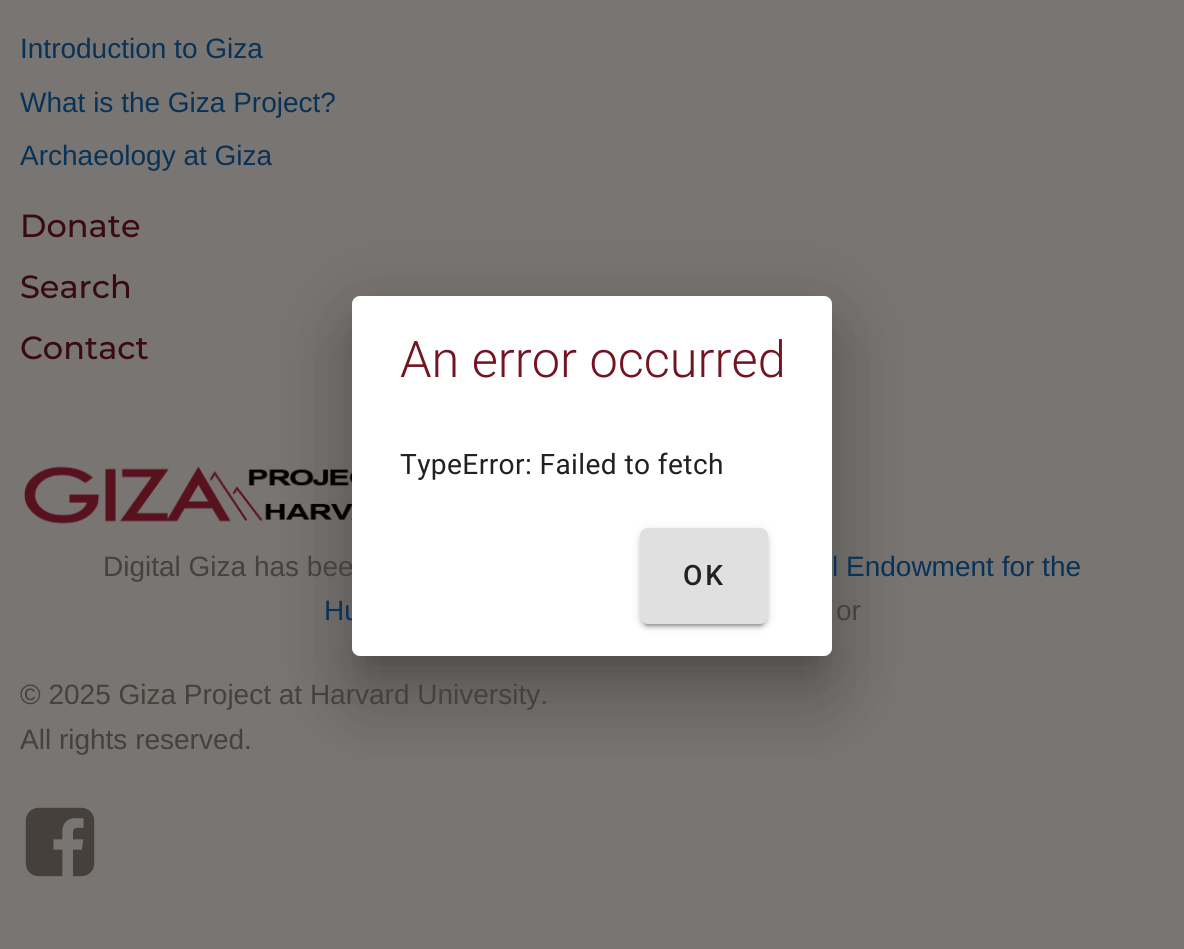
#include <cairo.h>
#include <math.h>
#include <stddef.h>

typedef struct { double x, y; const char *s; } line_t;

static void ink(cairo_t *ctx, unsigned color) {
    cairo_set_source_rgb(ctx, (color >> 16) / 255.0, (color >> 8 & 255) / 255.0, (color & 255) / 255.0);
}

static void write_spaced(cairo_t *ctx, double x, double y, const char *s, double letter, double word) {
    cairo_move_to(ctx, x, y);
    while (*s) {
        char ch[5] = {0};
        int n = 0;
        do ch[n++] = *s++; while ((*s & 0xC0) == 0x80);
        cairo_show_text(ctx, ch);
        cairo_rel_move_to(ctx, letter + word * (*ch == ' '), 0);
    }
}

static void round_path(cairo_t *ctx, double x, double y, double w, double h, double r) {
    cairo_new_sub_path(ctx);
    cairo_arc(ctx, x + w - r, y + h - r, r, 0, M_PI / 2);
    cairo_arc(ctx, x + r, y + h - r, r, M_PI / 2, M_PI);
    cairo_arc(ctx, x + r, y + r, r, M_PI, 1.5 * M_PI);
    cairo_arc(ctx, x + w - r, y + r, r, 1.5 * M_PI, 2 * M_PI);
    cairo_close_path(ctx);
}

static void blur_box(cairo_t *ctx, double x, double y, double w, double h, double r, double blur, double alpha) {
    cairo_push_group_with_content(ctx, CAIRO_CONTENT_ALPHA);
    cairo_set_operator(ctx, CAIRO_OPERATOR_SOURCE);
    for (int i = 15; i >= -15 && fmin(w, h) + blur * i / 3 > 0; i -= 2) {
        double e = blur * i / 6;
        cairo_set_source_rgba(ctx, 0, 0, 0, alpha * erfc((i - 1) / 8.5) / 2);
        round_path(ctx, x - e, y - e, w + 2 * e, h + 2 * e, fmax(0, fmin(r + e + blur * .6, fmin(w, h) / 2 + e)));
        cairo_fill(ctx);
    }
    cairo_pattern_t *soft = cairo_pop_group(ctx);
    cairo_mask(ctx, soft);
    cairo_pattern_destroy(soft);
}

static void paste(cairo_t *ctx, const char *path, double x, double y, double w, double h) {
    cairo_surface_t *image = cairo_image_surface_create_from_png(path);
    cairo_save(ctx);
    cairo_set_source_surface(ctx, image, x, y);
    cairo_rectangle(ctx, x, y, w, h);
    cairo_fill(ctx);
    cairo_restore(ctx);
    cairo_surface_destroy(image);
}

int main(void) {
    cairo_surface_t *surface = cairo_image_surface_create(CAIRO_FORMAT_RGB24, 1184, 949);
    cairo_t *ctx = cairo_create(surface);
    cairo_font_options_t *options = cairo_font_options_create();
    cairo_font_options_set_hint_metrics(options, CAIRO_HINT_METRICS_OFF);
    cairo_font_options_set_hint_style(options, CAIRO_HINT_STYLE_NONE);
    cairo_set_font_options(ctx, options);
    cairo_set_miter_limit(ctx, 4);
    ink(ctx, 0x787572);
    cairo_paint(ctx);
    cairo_select_font_face(ctx, "Liberation Sans", CAIRO_FONT_SLANT_NORMAL, CAIRO_FONT_WEIGHT_NORMAL);
    cairo_set_font_size(ctx, 28);
    ink(ctx, 0x093257);
    {
        static const line_t items[] = {
            {20, 58, "Introduction to Giza"},
            {20, 112, "What is the Giza Project?"},
            {20, 165, "Archaeology at Giza"},
        };
        for (size_t i = 0; i < sizeof items / sizeof *items; i++) {
            cairo_move_to(ctx, items[i].x, items[i].y);
            cairo_show_text(ctx, items[i].s);
        }
    }
    cairo_select_font_face(ctx, "Montserrat Medium", CAIRO_FONT_SLANT_NORMAL, CAIRO_FONT_WEIGHT_NORMAL);
    cairo_set_font_size(ctx, 32);
    ink(ctx, 0x3A0A11);
    {
        static const line_t items[] = {
            {20, 237, "Donate"},
            {20, 298, "Search"},
            {20, 359, "Contact"},
        };
        for (size_t i = 0; i < sizeof items / sizeof *items; i++) {
            cairo_move_to(ctx, items[i].x, items[i].y);
            cairo_show_text(ctx, items[i].s);
        }
    }
    paste(ctx, "media/1.png", 24, 466, 328, 58);
    ink(ctx, 0x000000);
    blur_box(ctx, 336, 298, 512, 392, 24, 46, 0.12);
    blur_box(ctx, 346, 338, 492, 372, 14, 38, 0.14);
    blur_box(ctx, 366, 332, 452, 332, 0, 15, 0.2);
    cairo_select_font_face(ctx, "Liberation Sans", CAIRO_FONT_SLANT_NORMAL, CAIRO_FONT_WEIGHT_NORMAL);
    cairo_set_font_size(ctx, 28);
    ink(ctx, 0x46413D);
    cairo_move_to(ctx, 103, 576);
    cairo_show_text(ctx, "Digital Giza has bee");
    ink(ctx, 0x093257);
    cairo_move_to(ctx, 324, 620);
    cairo_show_text(ctx, "Hu");
    ink(ctx, 0xFFFFFF);
    round_path(ctx, 352, 296, 480, 360, 8);
    cairo_fill(ctx);
    cairo_select_font_face(ctx, "Roboto Light", CAIRO_FONT_SLANT_NORMAL, CAIRO_FONT_WEIGHT_NORMAL);
    cairo_set_font_size(ctx, 50.5);
    ink(ctx, 0x731422);
    cairo_move_to(ctx, 400, 377);
    cairo_show_text(ctx, "An error occurred");
    cairo_select_font_face(ctx, "Roboto", CAIRO_FONT_SLANT_NORMAL, CAIRO_FONT_WEIGHT_NORMAL);
    cairo_set_font_size(ctx, 28.1);
    ink(ctx, 0x212121);
    write_spaced(ctx, 400, 474, "TypeError: Failed to fetch", 0.4, 0);
    ink(ctx, 0x000000);
    blur_box(ctx, 640, 530, 128, 96, 8, 5, 0.12);
    blur_box(ctx, 640, 532, 128, 96, 8, 2, 0.14);
    blur_box(ctx, 644, 538, 120, 88, 4, 1, 0.2);
    ink(ctx, 0xE0E0E0);
    round_path(ctx, 640, 528, 128, 96, 8);
    cairo_fill(ctx);
    cairo_select_font_face(ctx, "Roboto Medium", CAIRO_FONT_SLANT_NORMAL, CAIRO_FONT_WEIGHT_NORMAL);
    ink(ctx, 0x212121);
    write_spaced(ctx, 683, 585, "OK", 3, 0);
    cairo_select_font_face(ctx, "Liberation Sans", CAIRO_FONT_SLANT_NORMAL, CAIRO_FONT_WEIGHT_NORMAL);
    cairo_set_font_size(ctx, 28);
    ink(ctx, 0x093257);
    cairo_move_to(ctx, 832, 576);
    cairo_show_text(ctx, "l Endowment for the");
    ink(ctx, 0x46413D);
    {
        static const line_t items[] = {
            {836, 620, "or"},
            {20, 704, "© 2025 Giza Project at Harvard University."},
            {20, 749, "All rights reserved."},
        };
        for (size_t i = 0; i < sizeof items / sizeof *items; i++) {
            cairo_move_to(ctx, items[i].x, items[i].y);
            cairo_show_text(ctx, items[i].s);
        }
    }
    paste(ctx, "media/2.png", 25, 807, 70, 70);
    cairo_surface_write_to_png(surface, "image.png");
    cairo_font_options_destroy(options);
    cairo_destroy(ctx);
    cairo_surface_destroy(surface);
    return 0;
}
